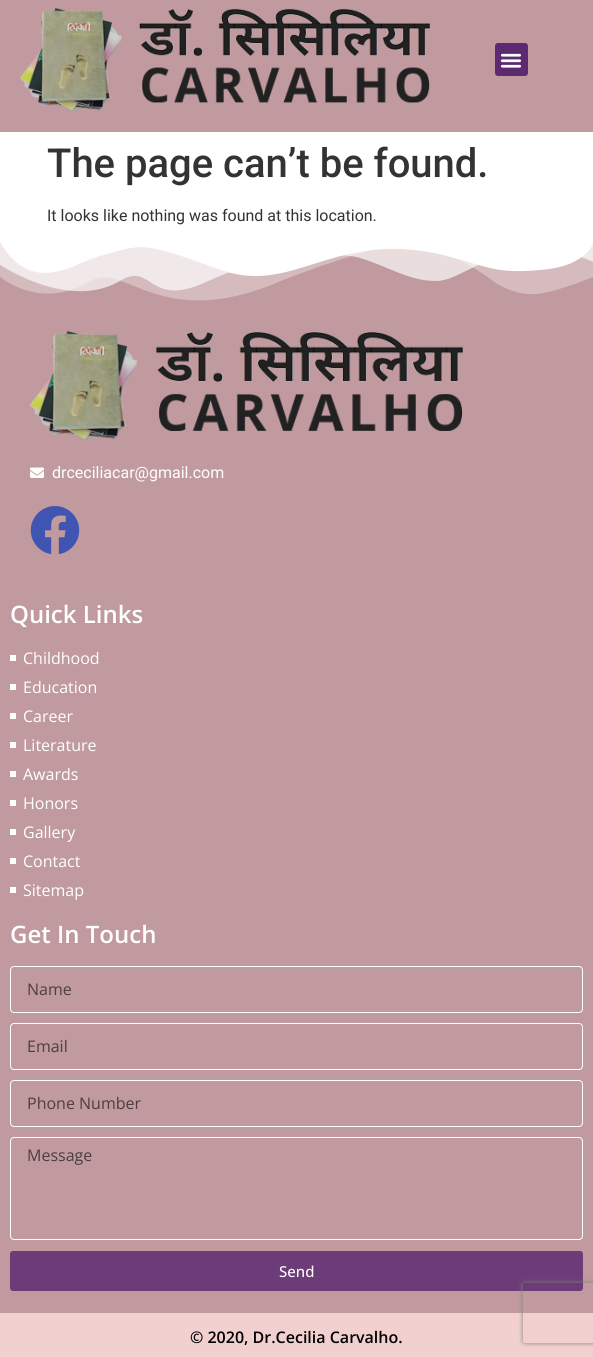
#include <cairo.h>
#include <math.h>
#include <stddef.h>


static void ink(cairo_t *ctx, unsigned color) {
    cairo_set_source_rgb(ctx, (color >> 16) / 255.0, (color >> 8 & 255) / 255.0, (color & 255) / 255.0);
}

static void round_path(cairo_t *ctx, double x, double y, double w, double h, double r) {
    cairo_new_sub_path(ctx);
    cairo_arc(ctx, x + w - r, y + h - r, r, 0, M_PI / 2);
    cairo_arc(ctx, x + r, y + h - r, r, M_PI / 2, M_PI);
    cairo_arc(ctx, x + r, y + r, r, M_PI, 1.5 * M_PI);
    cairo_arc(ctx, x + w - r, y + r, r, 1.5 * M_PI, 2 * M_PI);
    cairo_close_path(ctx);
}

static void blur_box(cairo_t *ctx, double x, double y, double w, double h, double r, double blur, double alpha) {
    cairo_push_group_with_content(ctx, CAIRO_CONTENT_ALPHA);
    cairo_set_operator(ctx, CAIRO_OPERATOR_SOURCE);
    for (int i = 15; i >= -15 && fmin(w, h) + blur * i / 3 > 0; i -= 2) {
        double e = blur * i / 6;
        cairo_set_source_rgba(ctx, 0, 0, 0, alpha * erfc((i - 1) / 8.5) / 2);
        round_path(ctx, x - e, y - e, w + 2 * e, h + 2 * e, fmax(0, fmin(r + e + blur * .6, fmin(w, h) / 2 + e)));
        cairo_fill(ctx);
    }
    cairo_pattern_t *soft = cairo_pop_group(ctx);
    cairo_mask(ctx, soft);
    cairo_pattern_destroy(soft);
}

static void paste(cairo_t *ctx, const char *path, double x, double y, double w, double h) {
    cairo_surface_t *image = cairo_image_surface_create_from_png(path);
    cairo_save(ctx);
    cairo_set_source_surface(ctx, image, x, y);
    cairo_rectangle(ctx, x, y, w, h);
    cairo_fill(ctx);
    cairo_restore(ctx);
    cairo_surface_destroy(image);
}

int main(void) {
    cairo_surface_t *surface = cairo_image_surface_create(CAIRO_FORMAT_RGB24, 593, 1357);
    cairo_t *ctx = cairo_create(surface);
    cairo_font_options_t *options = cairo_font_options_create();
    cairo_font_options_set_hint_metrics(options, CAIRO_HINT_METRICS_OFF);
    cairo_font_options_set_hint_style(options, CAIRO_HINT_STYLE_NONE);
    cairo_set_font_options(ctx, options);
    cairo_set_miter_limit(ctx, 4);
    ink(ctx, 0xFFFFFF);
    cairo_paint(ctx);
    ink(ctx, 0xC09A9E);
    cairo_rectangle(ctx, 0, 0, 593, 132);
    cairo_fill(ctx);
    paste(ctx, "media/1.png", 20, 8, 410, 104);
    ink(ctx, 0x5C2A70);
    round_path(ctx, 495, 43, 33, 33, 3);
    cairo_fill(ctx);
    paste(ctx, "media/2.png", 500, 53, 22, 15);
    cairo_select_font_face(ctx, "Roboto Medium", CAIRO_FONT_SLANT_NORMAL, CAIRO_FONT_WEIGHT_NORMAL);
    cairo_set_font_size(ctx, 40);
    ink(ctx, 0x333333);
    cairo_move_to(ctx, 47, 177);
    cairo_show_text(ctx, "The page can’t be found.");
    cairo_select_font_face(ctx, "Roboto", CAIRO_FONT_SLANT_NORMAL, CAIRO_FONT_WEIGHT_NORMAL);
    cairo_set_font_size(ctx, 16);
    cairo_move_to(ctx, 47, 221);
    cairo_show_text(ctx, "It looks like nothing was found at this location.");
    ink(ctx, 0xC09A9E);
    cairo_rectangle(ctx, 0, 242, 593, 1071);
    cairo_fill(ctx);
    paste(ctx, "media/3.png", 0, 242, 593, 59);
    paste(ctx, "media/4.png", 30, 331, 433, 110);
    paste(ctx, "media/5.png", 30, 467, 14, 11);
    ink(ctx, 0xFFFFFF);
    cairo_move_to(ctx, 52, 478);
    cairo_show_text(ctx, "drceciliacar@gmail.com");
    paste(ctx, "media/6.png", 30, 506, 50, 49);
    cairo_select_font_face(ctx, "Open Sans SemiBold", CAIRO_FONT_SLANT_NORMAL, CAIRO_FONT_WEIGHT_NORMAL);
    cairo_set_font_size(ctx, 24);
    cairo_move_to(ctx, 10, 623);
    cairo_show_text(ctx, "Quick Links");
    cairo_rectangle(ctx, 10, 655, 6, 6);
    cairo_fill(ctx);
    cairo_select_font_face(ctx, "Open Sans", CAIRO_FONT_SLANT_NORMAL, CAIRO_FONT_WEIGHT_NORMAL);
    cairo_set_font_size(ctx, 16);
    cairo_move_to(ctx, 23, 664);
    cairo_show_text(ctx, "Childhood");
    cairo_rectangle(ctx, 10, 684, 6, 6);
    cairo_fill(ctx);
    cairo_move_to(ctx, 23, 693);
    cairo_show_text(ctx, "Education");
    cairo_rectangle(ctx, 10, 713, 6, 6);
    cairo_fill(ctx);
    cairo_move_to(ctx, 23, 722);
    cairo_show_text(ctx, "Career");
    cairo_rectangle(ctx, 10, 742, 6, 6);
    cairo_fill(ctx);
    cairo_move_to(ctx, 23, 751);
    cairo_show_text(ctx, "Literature");
    cairo_rectangle(ctx, 10, 771, 6, 6);
    cairo_fill(ctx);
    cairo_move_to(ctx, 23, 780);
    cairo_show_text(ctx, "Awards");
    cairo_rectangle(ctx, 10, 800, 6, 6);
    cairo_fill(ctx);
    cairo_move_to(ctx, 23, 809);
    cairo_show_text(ctx, "Honors");
    cairo_rectangle(ctx, 10, 829, 6, 6);
    cairo_fill(ctx);
    cairo_move_to(ctx, 23, 838);
    cairo_show_text(ctx, "Gallery");
    cairo_rectangle(ctx, 10, 858, 6, 6);
    cairo_fill(ctx);
    cairo_move_to(ctx, 23, 867);
    cairo_show_text(ctx, "Contact");
    cairo_rectangle(ctx, 10, 887, 6, 6);
    cairo_fill(ctx);
    cairo_move_to(ctx, 23, 896);
    cairo_show_text(ctx, "Sitemap");
    cairo_select_font_face(ctx, "Open Sans SemiBold", CAIRO_FONT_SLANT_NORMAL, CAIRO_FONT_WEIGHT_NORMAL);
    cairo_set_font_size(ctx, 24);
    cairo_move_to(ctx, 10, 943);
    cairo_show_text(ctx, "Get In Touch");
    round_path(ctx, 10.5, 966.5, 572, 46, 3.5);
    cairo_set_line_width(ctx, 1);
    cairo_stroke(ctx);
    cairo_select_font_face(ctx, "Open Sans", CAIRO_FONT_SLANT_NORMAL, CAIRO_FONT_WEIGHT_NORMAL);
    cairo_set_font_size(ctx, 16);
    ink(ctx, 0x4D3E3F);
    cairo_move_to(ctx, 27, 995);
    cairo_show_text(ctx, "Name");
    round_path(ctx, 10.5, 1023.5, 572, 46, 3.5);
    ink(ctx, 0xFFFFFF);
    cairo_stroke(ctx);
    ink(ctx, 0x4D3E3F);
    cairo_move_to(ctx, 27, 1052);
    cairo_show_text(ctx, "Email");
    round_path(ctx, 10.5, 1080.5, 572, 46, 3.5);
    ink(ctx, 0xFFFFFF);
    cairo_stroke(ctx);
    ink(ctx, 0x4D3E3F);
    cairo_move_to(ctx, 27, 1109);
    cairo_show_text(ctx, "Phone Number");
    round_path(ctx, 10.5, 1137.5, 572, 102, 3.5);
    ink(ctx, 0xFFFFFF);
    cairo_stroke(ctx);
    ink(ctx, 0x4D3E3F);
    cairo_move_to(ctx, 27, 1161);
    cairo_show_text(ctx, "Message");
    ink(ctx, 0x6C3C78);
    round_path(ctx, 10.5, 1251.5, 572, 39, 2.5);
    cairo_fill_preserve(ctx);
    cairo_stroke(ctx);
    cairo_select_font_face(ctx, "Open Sans Medium", CAIRO_FONT_SLANT_NORMAL, CAIRO_FONT_WEIGHT_NORMAL);
    cairo_set_font_size(ctx, 15);
    ink(ctx, 0xFFFFFF);
    cairo_move_to(ctx, 279, 1277);
    cairo_show_text(ctx, "Send");
    ink(ctx, 0xF3D0D0);
    cairo_rectangle(ctx, 0, 1313, 593, 44);
    cairo_fill(ctx);
    cairo_save(ctx);
    cairo_set_fill_rule(ctx, CAIRO_FILL_RULE_EVEN_ODD);
    cairo_new_path(ctx);
    cairo_move_to(ctx, 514, 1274);
    cairo_line_to(ctx, 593, 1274);
    cairo_line_to(ctx, 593, 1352);
    cairo_line_to(ctx, 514, 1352);
    cairo_close_path(ctx);
    cairo_move_to(ctx, 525, 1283);
    cairo_line_to(ctx, 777, 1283);
    cairo_curve_to(ctx, 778, 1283, 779, 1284, 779, 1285);
    cairo_line_to(ctx, 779, 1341);
    cairo_curve_to(ctx, 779, 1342, 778, 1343, 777, 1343);
    cairo_line_to(ctx, 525, 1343);
    cairo_curve_to(ctx, 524, 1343, 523, 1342, 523, 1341);
    cairo_line_to(ctx, 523, 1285);
    cairo_curve_to(ctx, 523, 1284, 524, 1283, 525, 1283);
    cairo_close_path(ctx);
    cairo_clip(ctx);
    ink(ctx, 0x808080);
    blur_box(ctx, 523, 1283, 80, 60, 2, 2.5, 1);
    cairo_restore(ctx);
    cairo_select_font_face(ctx, "Open Sans SemiBold", CAIRO_FONT_SLANT_NORMAL, CAIRO_FONT_WEIGHT_NORMAL);
    cairo_set_font_size(ctx, 16);
    ink(ctx, 0x000000);
    cairo_move_to(ctx, 190, 1343);
    cairo_show_text(ctx, "© 2020, Dr.Cecilia Carvalho.");
    cairo_surface_write_to_png(surface, "image.png");
    cairo_font_options_destroy(options);
    cairo_destroy(ctx);
    cairo_surface_destroy(surface);
    return 0;
}
